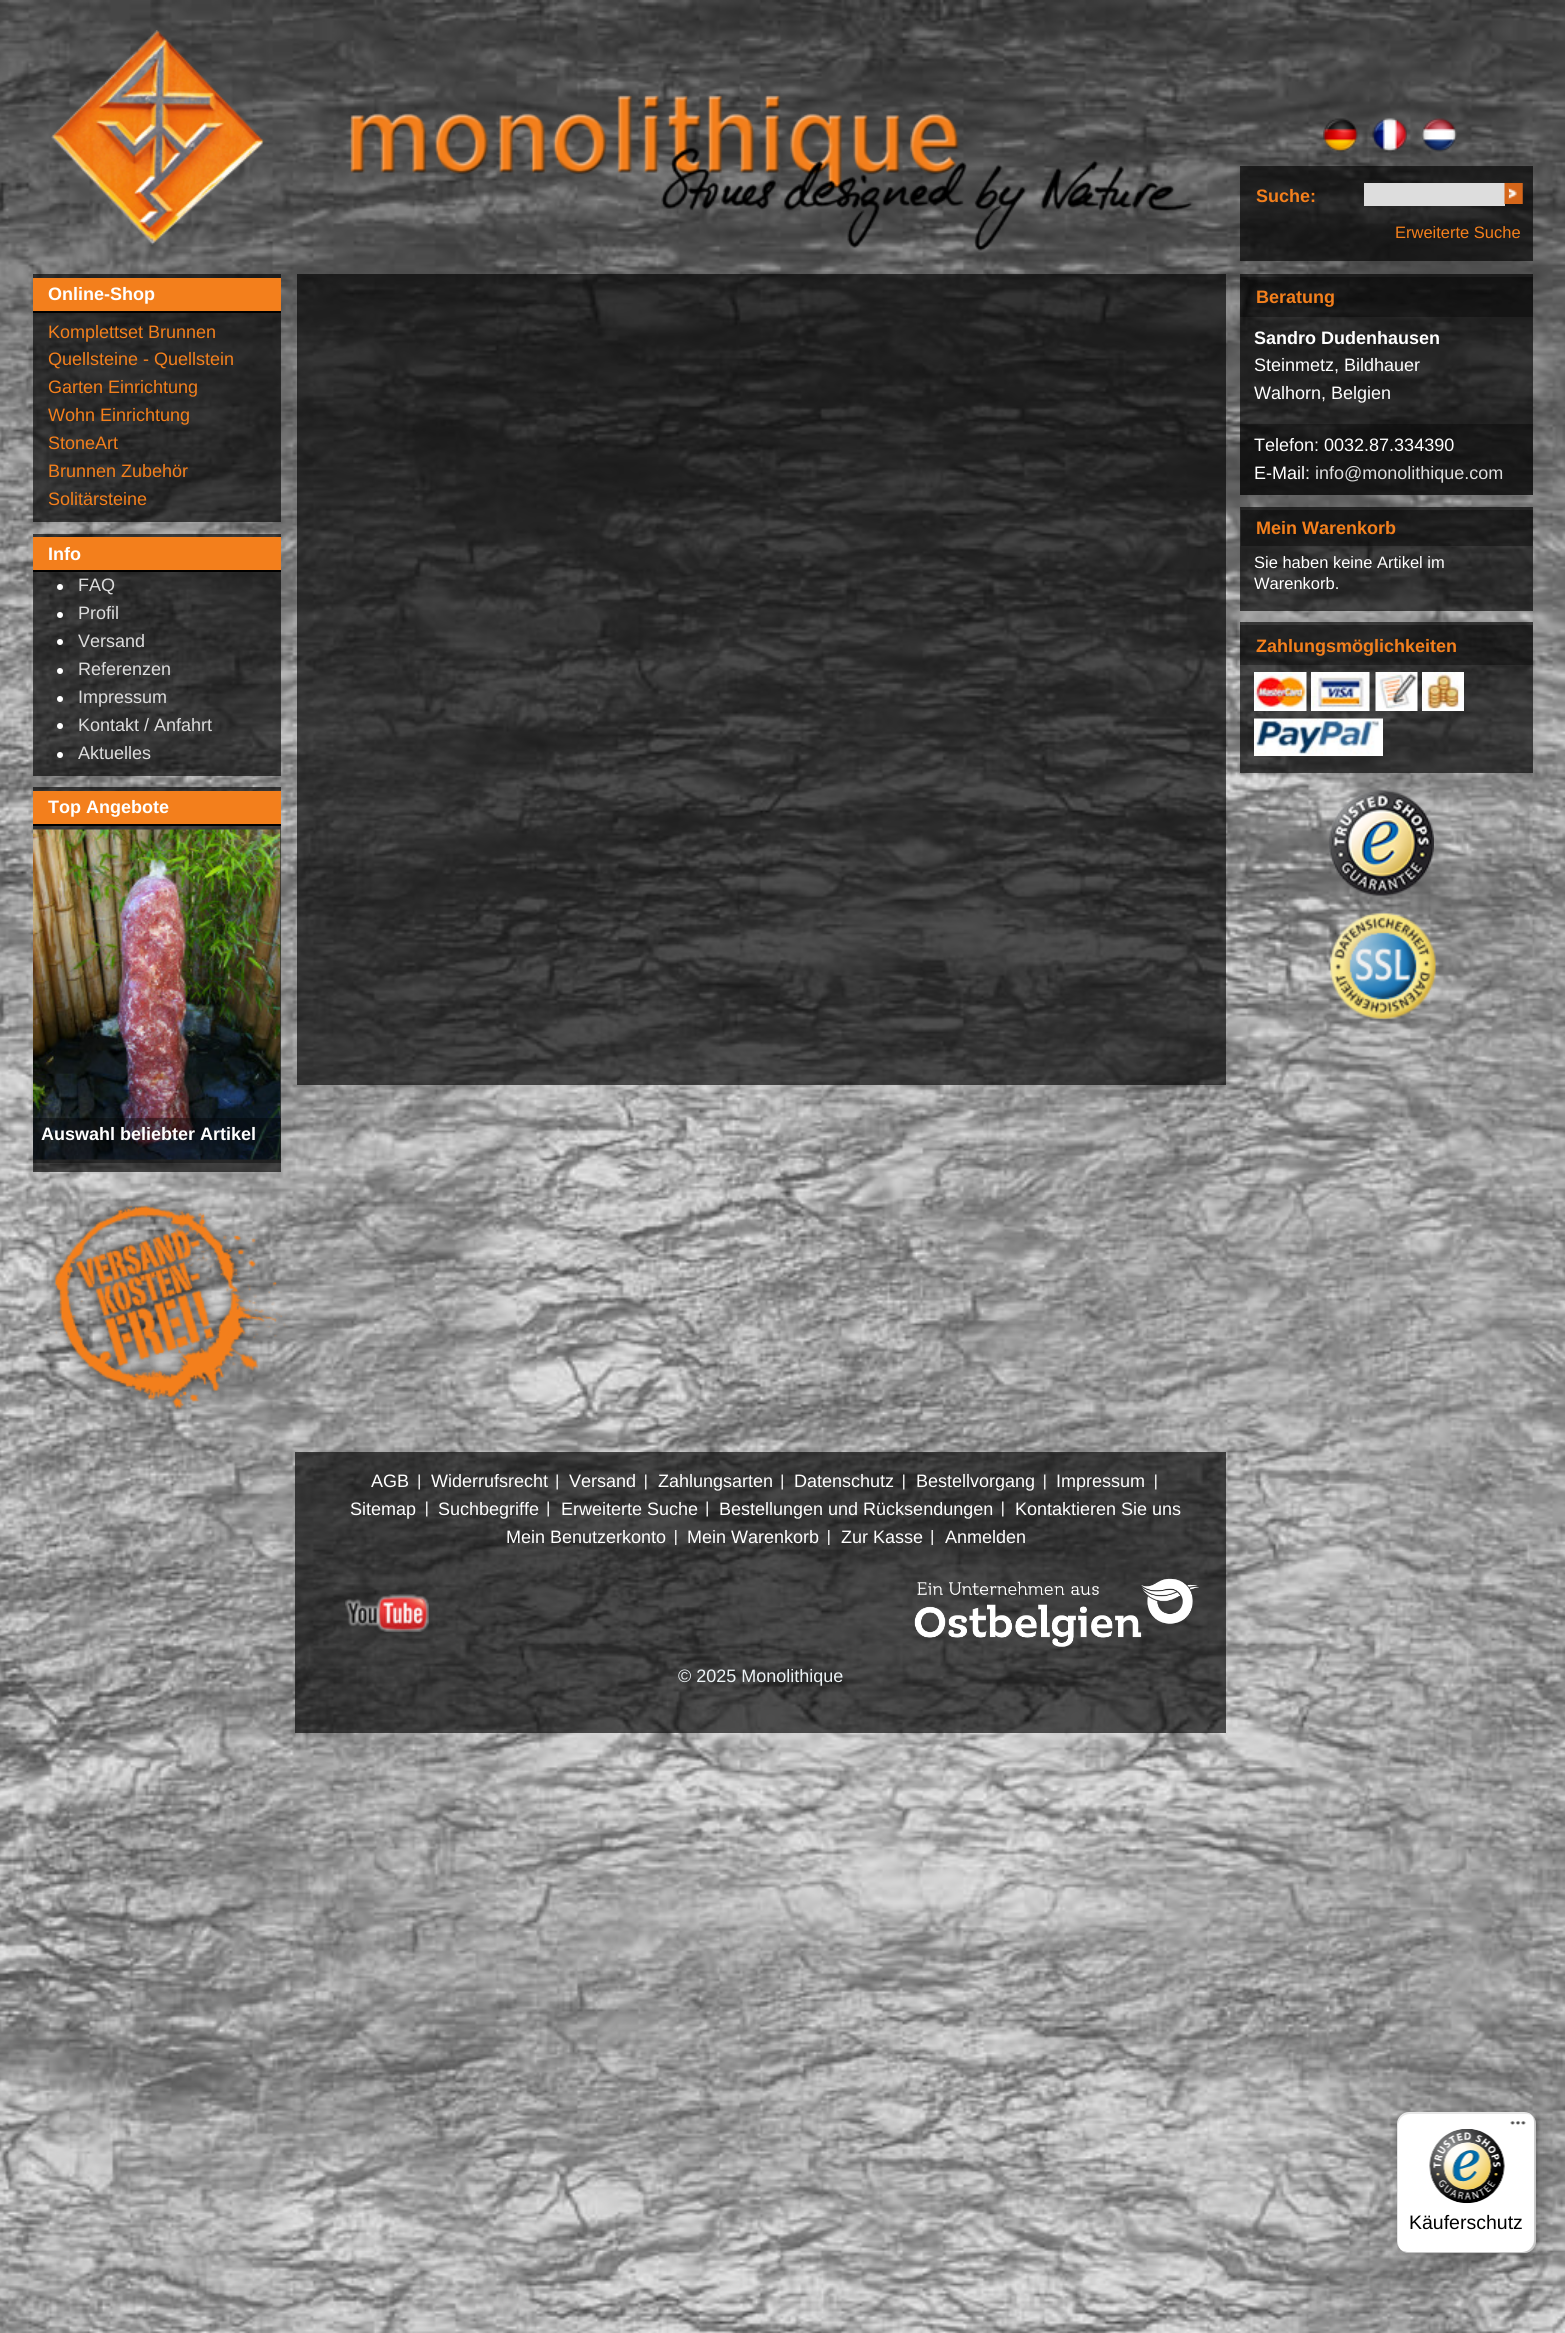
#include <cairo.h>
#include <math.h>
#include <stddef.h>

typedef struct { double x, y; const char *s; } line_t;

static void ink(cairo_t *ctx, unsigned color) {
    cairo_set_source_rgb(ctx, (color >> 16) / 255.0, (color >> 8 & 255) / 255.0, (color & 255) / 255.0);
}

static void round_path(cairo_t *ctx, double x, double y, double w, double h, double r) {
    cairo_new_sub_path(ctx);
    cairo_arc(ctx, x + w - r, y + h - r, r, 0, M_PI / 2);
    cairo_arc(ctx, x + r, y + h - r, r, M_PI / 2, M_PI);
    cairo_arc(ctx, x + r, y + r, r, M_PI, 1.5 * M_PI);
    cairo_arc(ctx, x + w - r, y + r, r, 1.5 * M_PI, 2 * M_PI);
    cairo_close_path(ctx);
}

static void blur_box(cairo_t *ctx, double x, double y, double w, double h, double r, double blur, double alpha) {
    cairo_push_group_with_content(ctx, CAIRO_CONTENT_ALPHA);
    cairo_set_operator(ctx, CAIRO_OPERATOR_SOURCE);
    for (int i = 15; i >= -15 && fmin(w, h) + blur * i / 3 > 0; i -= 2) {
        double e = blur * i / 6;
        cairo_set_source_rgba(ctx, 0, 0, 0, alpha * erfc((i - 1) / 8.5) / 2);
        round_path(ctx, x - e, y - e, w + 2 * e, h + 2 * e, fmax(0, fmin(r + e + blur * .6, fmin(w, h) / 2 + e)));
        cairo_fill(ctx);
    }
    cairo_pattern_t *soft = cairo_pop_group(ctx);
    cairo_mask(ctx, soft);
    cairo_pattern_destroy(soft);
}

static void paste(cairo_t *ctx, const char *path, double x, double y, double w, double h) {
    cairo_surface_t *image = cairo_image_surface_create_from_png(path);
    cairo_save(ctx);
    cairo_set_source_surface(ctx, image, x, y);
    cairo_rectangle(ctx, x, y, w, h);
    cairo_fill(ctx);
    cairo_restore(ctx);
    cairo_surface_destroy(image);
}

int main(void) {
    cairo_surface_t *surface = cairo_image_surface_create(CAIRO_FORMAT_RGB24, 1565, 2333);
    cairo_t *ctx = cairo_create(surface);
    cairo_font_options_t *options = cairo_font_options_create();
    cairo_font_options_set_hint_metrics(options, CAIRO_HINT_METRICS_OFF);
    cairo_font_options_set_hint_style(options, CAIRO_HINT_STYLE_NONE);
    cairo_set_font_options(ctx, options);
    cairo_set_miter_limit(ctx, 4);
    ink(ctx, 0xFFFFFF);
    cairo_paint(ctx);
    paste(ctx, "media/1.png", 0, 0, 1565, 2333);
    paste(ctx, "media/2.png", 51, 30, 213, 215);
    paste(ctx, "media/3.png", 350, 95, 843, 156);
    paste(ctx, "media/4.png", 1323, 118, 35, 34);
    paste(ctx, "media/5.png", 1372, 118, 35, 34);
    paste(ctx, "media/6.png", 1422, 118, 35, 34);
    cairo_set_source_rgba(ctx, 0, 0, 0, 0.65);
    cairo_rectangle(ctx, 1240, 166, 293, 95);
    cairo_fill(ctx);
    cairo_select_font_face(ctx, "Liberation Sans", CAIRO_FONT_SLANT_NORMAL, CAIRO_FONT_WEIGHT_BOLD);
    cairo_set_font_size(ctx, 18);
    ink(ctx, 0xF37F1C);
    cairo_move_to(ctx, 1256, 202);
    cairo_show_text(ctx, "Suche:");
    ink(ctx, 0xDDDDDD);
    cairo_rectangle(ctx, 1364, 183, 141, 23);
    cairo_fill(ctx);
    paste(ctx, "media/7.png", 1504, 183, 19, 21);
    paste(ctx, "media/8.png", 1509, 183, 14, 21);
    cairo_select_font_face(ctx, "Liberation Sans", CAIRO_FONT_SLANT_NORMAL, CAIRO_FONT_WEIGHT_NORMAL);
    cairo_set_font_size(ctx, 16.5);
    ink(ctx, 0xF37F1C);
    cairo_move_to(ctx, 1395, 238);
    cairo_show_text(ctx, "Erweiterte Suche");
    cairo_set_source_rgba(ctx, 0, 0, 0, 0.65);
    cairo_rectangle(ctx, 33, 274, 248, 248);
    cairo_fill(ctx);
    ink(ctx, 0xF37F1C);
    cairo_rectangle(ctx, 33, 278, 248, 33);
    cairo_fill(ctx);
    ink(ctx, 0x000000);
    cairo_rectangle(ctx, 33, 311, 248, 2);
    cairo_fill(ctx);
    cairo_select_font_face(ctx, "Liberation Sans", CAIRO_FONT_SLANT_NORMAL, CAIRO_FONT_WEIGHT_BOLD);
    cairo_set_font_size(ctx, 18);
    ink(ctx, 0xFFFFFF);
    cairo_move_to(ctx, 48, 300);
    cairo_show_text(ctx, "Online-Shop");
    cairo_select_font_face(ctx, "Liberation Sans", CAIRO_FONT_SLANT_NORMAL, CAIRO_FONT_WEIGHT_NORMAL);
    ink(ctx, 0xF37F1C);
    {
        static const line_t items[] = {
            {48, 338, "Komplettset Brunnen"},
            {48, 365, "Quellsteine - Quellstein"},
            {48, 393, "Garten Einrichtung"},
            {48, 421, "Wohn Einrichtung"},
            {48, 449, "StoneArt"},
            {48, 477, "Brunnen Zubehör"},
            {48, 505, "Solitärsteine"},
        };
        for (size_t i = 0; i < sizeof items / sizeof *items; i++) {
            cairo_move_to(ctx, items[i].x, items[i].y);
            cairo_show_text(ctx, items[i].s);
        }
    }
    cairo_set_source_rgba(ctx, 0, 0, 0, 0.65);
    cairo_rectangle(ctx, 33, 534, 248, 242);
    cairo_fill(ctx);
    ink(ctx, 0xF37F1C);
    cairo_rectangle(ctx, 33, 537, 248, 33);
    cairo_fill(ctx);
    ink(ctx, 0x000000);
    cairo_rectangle(ctx, 33, 570, 248, 2);
    cairo_fill(ctx);
    cairo_select_font_face(ctx, "Liberation Sans", CAIRO_FONT_SLANT_NORMAL, CAIRO_FONT_WEIGHT_BOLD);
    ink(ctx, 0xFFFFFF);
    cairo_move_to(ctx, 48, 560);
    cairo_show_text(ctx, "Info");
    cairo_new_path(ctx);
    cairo_arc(ctx, 60, 587, 3, 0, 2 * M_PI);
    cairo_fill(ctx);
    cairo_select_font_face(ctx, "Liberation Sans", CAIRO_FONT_SLANT_NORMAL, CAIRO_FONT_WEIGHT_NORMAL);
    ink(ctx, 0xDDDDDD);
    cairo_move_to(ctx, 78, 591);
    cairo_show_text(ctx, "FAQ");
    ink(ctx, 0xFFFFFF);
    cairo_new_path(ctx);
    cairo_arc(ctx, 60, 615, 3, 0, 2 * M_PI);
    cairo_fill(ctx);
    ink(ctx, 0xDDDDDD);
    cairo_move_to(ctx, 78, 619);
    cairo_show_text(ctx, "Profil");
    ink(ctx, 0xFFFFFF);
    cairo_new_path(ctx);
    cairo_arc(ctx, 60, 642, 3, 0, 2 * M_PI);
    cairo_fill(ctx);
    ink(ctx, 0xDDDDDD);
    cairo_move_to(ctx, 78, 647);
    cairo_show_text(ctx, "Versand");
    ink(ctx, 0xFFFFFF);
    cairo_new_path(ctx);
    cairo_arc(ctx, 60, 671, 3, 0, 2 * M_PI);
    cairo_fill(ctx);
    ink(ctx, 0xDDDDDD);
    cairo_move_to(ctx, 78, 675);
    cairo_show_text(ctx, "Referenzen");
    ink(ctx, 0xFFFFFF);
    cairo_new_path(ctx);
    cairo_arc(ctx, 60, 699, 3, 0, 2 * M_PI);
    cairo_fill(ctx);
    ink(ctx, 0xDDDDDD);
    cairo_move_to(ctx, 78, 703);
    cairo_show_text(ctx, "Impressum");
    ink(ctx, 0xFFFFFF);
    cairo_new_path(ctx);
    cairo_arc(ctx, 60, 726, 3, 0, 2 * M_PI);
    cairo_fill(ctx);
    ink(ctx, 0xDDDDDD);
    cairo_move_to(ctx, 78, 731);
    cairo_show_text(ctx, "Kontakt / Anfahrt");
    ink(ctx, 0xFFFFFF);
    cairo_new_path(ctx);
    cairo_arc(ctx, 60, 755, 3, 0, 2 * M_PI);
    cairo_fill(ctx);
    ink(ctx, 0xDDDDDD);
    cairo_move_to(ctx, 78, 759);
    cairo_show_text(ctx, "Aktuelles");
    cairo_set_source_rgba(ctx, 0, 0, 0, 0.65);
    cairo_rectangle(ctx, 33, 787, 248, 385);
    cairo_fill(ctx);
    ink(ctx, 0xF37F1C);
    cairo_rectangle(ctx, 33, 791, 248, 33);
    cairo_fill(ctx);
    ink(ctx, 0x000000);
    cairo_rectangle(ctx, 33, 824, 248, 2);
    cairo_fill(ctx);
    cairo_select_font_face(ctx, "Liberation Sans", CAIRO_FONT_SLANT_NORMAL, CAIRO_FONT_WEIGHT_BOLD);
    ink(ctx, 0xFFFFFF);
    cairo_move_to(ctx, 48, 813);
    cairo_show_text(ctx, "Top Angebote");
    paste(ctx, "media/9.png", 33, 829, 248, 331);
    cairo_set_source_rgba(ctx, 0, 0, 0, 0.4);
    cairo_rectangle(ctx, 33, 1118, 248, 45);
    cairo_fill(ctx);
    ink(ctx, 0xFFFFFF);
    cairo_move_to(ctx, 41, 1140);
    cairo_show_text(ctx, "Auswahl beliebter Artikel");
    paste(ctx, "media/10.png", 47, 1198, 241, 217);
    cairo_set_source_rgba(ctx, 0, 0, 0, 0.65);
    cairo_rectangle(ctx, 297, 274, 929, 811);
    cairo_fill(ctx);
    cairo_rectangle(ctx, 1240, 274, 293, 221);
    cairo_fill(ctx);
    cairo_set_source_rgba(ctx, 0, 0, 0, 0.35);
    cairo_rectangle(ctx, 1240, 277, 293, 40);
    cairo_fill(ctx);
    ink(ctx, 0xF37F1C);
    cairo_move_to(ctx, 1256, 303);
    cairo_show_text(ctx, "Beratung");
    ink(ctx, 0xFFFFFF);
    cairo_move_to(ctx, 1254, 344);
    cairo_show_text(ctx, "Sandro Dudenhausen");
    cairo_select_font_face(ctx, "Liberation Sans", CAIRO_FONT_SLANT_NORMAL, CAIRO_FONT_WEIGHT_NORMAL);
    cairo_move_to(ctx, 1254, 371);
    cairo_show_text(ctx, "Steinmetz, Bildhauer");
    cairo_move_to(ctx, 1254, 399);
    cairo_show_text(ctx, "Walhorn, Belgien");
    cairo_set_source_rgba(ctx, 0, 0, 0, 0.35);
    cairo_rectangle(ctx, 1240, 424, 293, 71);
    cairo_fill(ctx);
    ink(ctx, 0xFFFFFF);
    cairo_move_to(ctx, 1254, 451);
    cairo_show_text(ctx, "Telefon: 0032.87.334390");
    cairo_move_to(ctx, 1254, 479);
    cairo_show_text(ctx, "E-Mail:");
    ink(ctx, 0xDDDDDD);
    cairo_move_to(ctx, 1315, 479);
    cairo_show_text(ctx, "info@monolithique.com");
    cairo_set_source_rgba(ctx, 0, 0, 0, 0.65);
    cairo_rectangle(ctx, 1240, 507, 293, 104);
    cairo_fill(ctx);
    cairo_set_source_rgba(ctx, 0, 0, 0, 0.35);
    cairo_rectangle(ctx, 1241, 510, 292, 36);
    cairo_fill(ctx);
    cairo_select_font_face(ctx, "Liberation Sans", CAIRO_FONT_SLANT_NORMAL, CAIRO_FONT_WEIGHT_BOLD);
    ink(ctx, 0xF37F1C);
    cairo_move_to(ctx, 1256, 534);
    cairo_show_text(ctx, "Mein Warenkorb");
    cairo_select_font_face(ctx, "Liberation Sans", CAIRO_FONT_SLANT_NORMAL, CAIRO_FONT_WEIGHT_NORMAL);
    cairo_set_font_size(ctx, 16.5);
    ink(ctx, 0xFFFFFF);
    cairo_move_to(ctx, 1254, 568);
    cairo_show_text(ctx, "Sie haben keine Artikel im");
    cairo_move_to(ctx, 1254, 589);
    cairo_show_text(ctx, "Warenkorb.");
    cairo_set_source_rgba(ctx, 0, 0, 0, 0.65);
    cairo_rectangle(ctx, 1240, 622, 293, 151);
    cairo_fill(ctx);
    cairo_set_source_rgba(ctx, 0, 0, 0, 0.35);
    cairo_rectangle(ctx, 1240, 625, 293, 40);
    cairo_fill(ctx);
    cairo_select_font_face(ctx, "Liberation Sans", CAIRO_FONT_SLANT_NORMAL, CAIRO_FONT_WEIGHT_BOLD);
    cairo_set_font_size(ctx, 18);
    ink(ctx, 0xF37F1C);
    cairo_move_to(ctx, 1256, 652);
    cairo_show_text(ctx, "Zahlungsmöglichkeiten");
    paste(ctx, "media/11.png", 1254, 672, 53, 39);
    paste(ctx, "media/12.png", 1311, 672, 59, 39);
    paste(ctx, "media/13.png", 1375, 672, 43, 39);
    paste(ctx, "media/14.png", 1422, 672, 42, 39);
    paste(ctx, "media/15.png", 1254, 718, 129, 38);
    paste(ctx, "media/16.png", 1329, 790, 105, 106);
    paste(ctx, "media/17.png", 1330, 913, 106, 106);
    cairo_set_source_rgba(ctx, 0, 0, 0, 0.65);
    cairo_rectangle(ctx, 295, 1452, 931, 281);
    cairo_fill(ctx);
    cairo_select_font_face(ctx, "Liberation Sans", CAIRO_FONT_SLANT_NORMAL, CAIRO_FONT_WEIGHT_NORMAL);
    ink(ctx, 0xFFFFFF);
    cairo_move_to(ctx, 371, 1487);
    cairo_show_text(ctx, "AGB");
    paste(ctx, "media/18.png", 418, 1474, 2, 16);
    cairo_move_to(ctx, 431, 1487);
    cairo_show_text(ctx, "Widerrufsrecht");
    paste(ctx, "media/19.png", 556, 1474, 2, 16);
    cairo_move_to(ctx, 569, 1487);
    cairo_show_text(ctx, "Versand");
    paste(ctx, "media/20.png", 645, 1474, 2, 16);
    cairo_move_to(ctx, 658, 1487);
    cairo_show_text(ctx, "Zahlungsarten");
    paste(ctx, "media/21.png", 781, 1474, 2, 16);
    cairo_move_to(ctx, 794, 1487);
    cairo_show_text(ctx, "Datenschutz");
    paste(ctx, "media/22.png", 903, 1474, 2, 16);
    cairo_move_to(ctx, 916, 1487);
    cairo_show_text(ctx, "Bestellvorgang");
    paste(ctx, "media/23.png", 1044, 1474, 2, 16);
    cairo_move_to(ctx, 1056, 1487);
    cairo_show_text(ctx, "Impressum");
    paste(ctx, "media/24.png", 1155, 1474, 2, 16);
    cairo_move_to(ctx, 350, 1515);
    cairo_show_text(ctx, "Sitemap");
    paste(ctx, "media/25.png", 426, 1501, 2, 16);
    cairo_move_to(ctx, 438, 1515);
    cairo_show_text(ctx, "Suchbegriffe");
    paste(ctx, "media/26.png", 547, 1501, 2, 16);
    cairo_move_to(ctx, 561, 1515);
    cairo_show_text(ctx, "Erweiterte Suche");
    paste(ctx, "media/27.png", 706, 1501, 2, 16);
    cairo_move_to(ctx, 719, 1515);
    cairo_show_text(ctx, "Bestellungen und Rücksendungen");
    paste(ctx, "media/28.png", 1002, 1501, 2, 16);
    cairo_move_to(ctx, 1015, 1515);
    cairo_show_text(ctx, "Kontaktieren Sie uns");
    cairo_move_to(ctx, 506, 1543);
    cairo_show_text(ctx, "Mein Benutzerkonto");
    paste(ctx, "media/29.png", 675, 1530, 2, 15);
    cairo_move_to(ctx, 687, 1543);
    cairo_show_text(ctx, "Mein Warenkorb");
    paste(ctx, "media/30.png", 828, 1530, 2, 15);
    cairo_move_to(ctx, 841, 1543);
    cairo_show_text(ctx, "Zur Kasse");
    paste(ctx, "media/31.png", 931, 1530, 2, 15);
    cairo_move_to(ctx, 945, 1543);
    cairo_show_text(ctx, "Anmelden");
    paste(ctx, "media/32.png", 345, 1594, 84, 38);
    paste(ctx, "media/33.png", 914, 1578, 285, 69);
    ink(ctx, 0xECF3F6);
    cairo_move_to(ctx, 678, 1682);
    cairo_show_text(ctx, "© 2025 Monolithique");
    ink(ctx, 0x000000);
    blur_box(ctx, 1401, 2117, 140, 141, 12, 6, 0.15);
    blur_box(ctx, 1398, 2114, 140, 141, 12, 1.5, 0.15);
    ink(ctx, 0xFFFFFF);
    round_path(ctx, 1397, 2112, 139, 141, 12);
    cairo_fill(ctx);
    cairo_set_source_rgba(ctx, 0, 0, 0, 0.1);
    cairo_new_path(ctx);
    cairo_move_to(ctx, 1410, 2114);
    cairo_line_to(ctx, 1526, 2114);
    cairo_curve_to(ctx, 1529, 2114, 1531, 2115, 1534, 2117);
    cairo_curve_to(ctx, 1531, 2114, 1528, 2112, 1524, 2112);
    cairo_line_to(ctx, 1409, 2112);
    cairo_curve_to(ctx, 1402, 2112, 1397, 2117, 1397, 2124);
    cairo_line_to(ctx, 1397, 2241);
    cairo_curve_to(ctx, 1397, 2244, 1398, 2247, 1400, 2249);
    cairo_curve_to(ctx, 1399, 2247, 1398, 2245, 1398, 2242);
    cairo_line_to(ctx, 1398, 2126);
    cairo_curve_to(ctx, 1398, 2119, 1403, 2114, 1410, 2114);
    cairo_close_path(ctx);
    cairo_fill(ctx);
    cairo_set_source_rgba(ctx, 0, 0, 0, 0.2);
    cairo_new_path(ctx);
    cairo_move_to(ctx, 1403, 2251);
    cairo_curve_to(ctx, 1404, 2252, 1407, 2253, 1409, 2253);
    cairo_line_to(ctx, 1524, 2253);
    cairo_curve_to(ctx, 1531, 2253, 1536, 2248, 1536, 2241);
    cairo_line_to(ctx, 1536, 2124);
    cairo_curve_to(ctx, 1536, 2120, 1534, 2117, 1531, 2114);
    cairo_curve_to(ctx, 1533, 2117, 1534, 2119, 1534, 2122);
    cairo_line_to(ctx, 1534, 2240);
    cairo_curve_to(ctx, 1534, 2246, 1529, 2252, 1522, 2252);
    cairo_line_to(ctx, 1407, 2252);
    cairo_close_path(ctx);
    cairo_fill(ctx);
    cairo_set_source_rgba(ctx, 0.196, 0.196, 0.196, 0.2);
    cairo_new_path(ctx);
    cairo_move_to(ctx, 1401, 2250);
    cairo_curve_to(ctx, 1403, 2252, 1406, 2253, 1409, 2253);
    cairo_line_to(ctx, 1524, 2253);
    cairo_curve_to(ctx, 1531, 2253, 1536, 2248, 1536, 2241);
    cairo_line_to(ctx, 1536, 2124);
    cairo_curve_to(ctx, 1536, 2121, 1535, 2118, 1533, 2116);
    cairo_curve_to(ctx, 1534, 2118, 1535, 2120, 1535, 2123);
    cairo_line_to(ctx, 1535, 2240);
    cairo_curve_to(ctx, 1535, 2247, 1530, 2252, 1523, 2252);
    cairo_line_to(ctx, 1408, 2252);
    cairo_curve_to(ctx, 1405, 2252, 1403, 2251, 1401, 2250);
    cairo_close_path(ctx);
    cairo_fill(ctx);
    cairo_set_source_rgba(ctx, 1, 1, 1, 0.3);
    cairo_new_path(ctx);
    cairo_move_to(ctx, 1401, 2250);
    cairo_curve_to(ctx, 1403, 2252, 1406, 2253, 1409, 2253);
    cairo_line_to(ctx, 1524, 2253);
    cairo_curve_to(ctx, 1531, 2253, 1536, 2248, 1536, 2241);
    cairo_line_to(ctx, 1536, 2124);
    cairo_curve_to(ctx, 1536, 2120, 1534, 2117, 1532, 2115);
    cairo_curve_to(ctx, 1534, 2117, 1535, 2120, 1535, 2123);
    cairo_line_to(ctx, 1535, 2240);
    cairo_curve_to(ctx, 1535, 2247, 1530, 2252, 1523, 2252);
    cairo_line_to(ctx, 1408, 2252);
    cairo_curve_to(ctx, 1405, 2252, 1403, 2251, 1401, 2250);
    cairo_close_path(ctx);
    cairo_fill(ctx);
    paste(ctx, "media/34.png", 1510, 2121, 16, 4);
    paste(ctx, "media/35.png", 1429, 2129, 76, 75);
    cairo_set_font_size(ctx, 19.5);
    ink(ctx, 0x000000);
    cairo_move_to(ctx, 1409, 2229);
    cairo_show_text(ctx, "Käuferschutz");
    cairo_surface_write_to_png(surface, "image.png");
    cairo_font_options_destroy(options);
    cairo_destroy(ctx);
    cairo_surface_destroy(surface);
    return 0;
}
